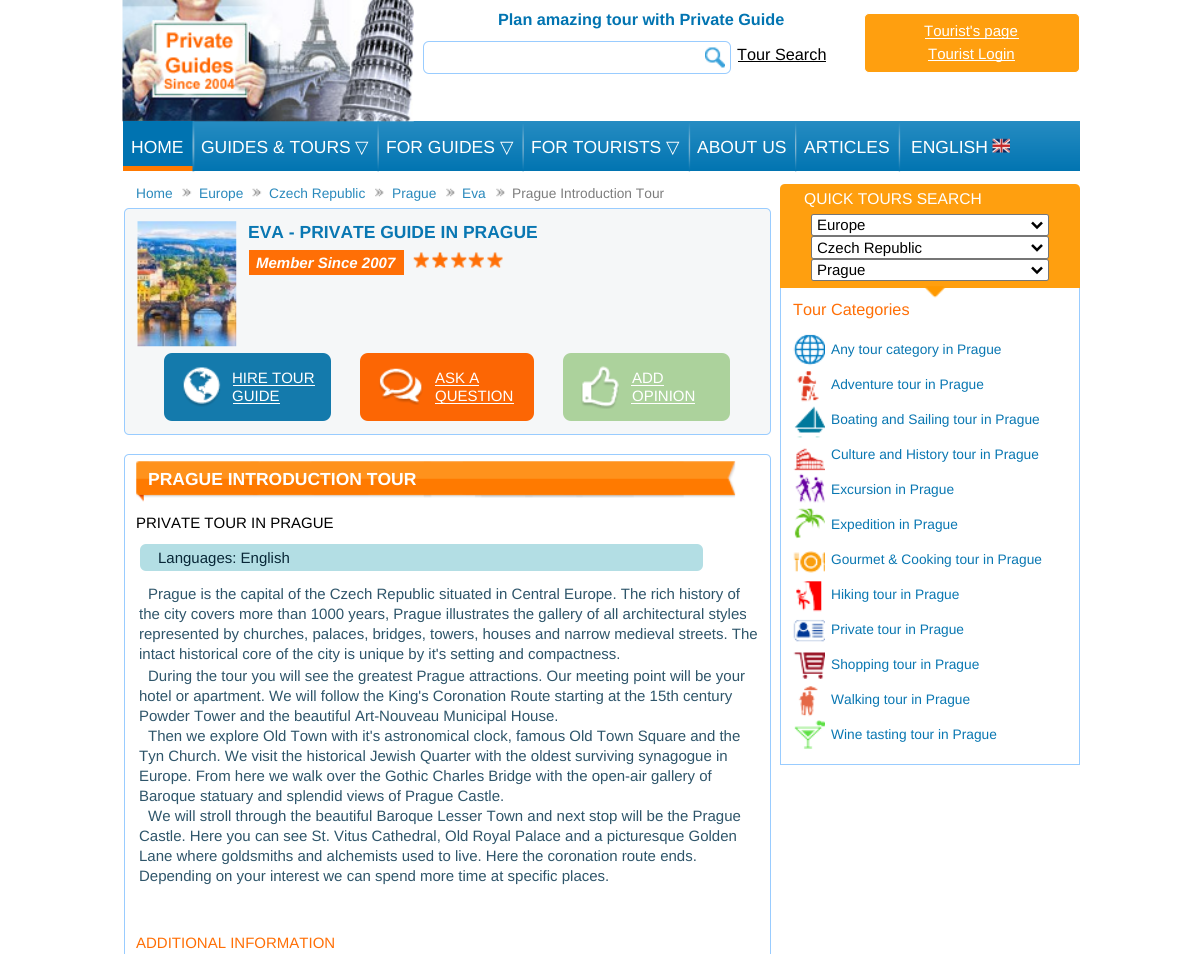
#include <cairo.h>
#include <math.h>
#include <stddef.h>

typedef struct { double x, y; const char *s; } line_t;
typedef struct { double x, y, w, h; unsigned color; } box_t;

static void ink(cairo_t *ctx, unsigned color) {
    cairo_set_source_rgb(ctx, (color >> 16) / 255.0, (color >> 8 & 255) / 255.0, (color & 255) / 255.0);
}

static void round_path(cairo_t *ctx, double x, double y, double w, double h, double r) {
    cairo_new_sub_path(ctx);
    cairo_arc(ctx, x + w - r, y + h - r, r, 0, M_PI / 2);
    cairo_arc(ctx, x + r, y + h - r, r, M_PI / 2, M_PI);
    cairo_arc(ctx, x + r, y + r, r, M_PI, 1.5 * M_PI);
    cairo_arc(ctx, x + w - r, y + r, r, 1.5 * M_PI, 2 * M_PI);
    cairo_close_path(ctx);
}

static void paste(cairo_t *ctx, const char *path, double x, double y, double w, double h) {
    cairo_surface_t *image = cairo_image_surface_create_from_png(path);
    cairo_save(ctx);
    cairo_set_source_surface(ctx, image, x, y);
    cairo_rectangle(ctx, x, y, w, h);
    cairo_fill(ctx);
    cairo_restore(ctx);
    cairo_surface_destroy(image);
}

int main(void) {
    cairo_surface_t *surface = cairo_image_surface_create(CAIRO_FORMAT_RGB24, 1201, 954);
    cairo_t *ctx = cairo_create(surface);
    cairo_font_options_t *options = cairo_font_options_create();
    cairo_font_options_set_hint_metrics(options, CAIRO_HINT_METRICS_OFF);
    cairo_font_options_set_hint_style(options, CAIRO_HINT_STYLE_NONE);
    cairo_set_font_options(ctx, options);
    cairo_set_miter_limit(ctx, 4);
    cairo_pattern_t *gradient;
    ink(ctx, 0xFFFFFF);
    cairo_paint(ctx);
    gradient = cairo_pattern_create_linear(601, 121, 601, 171);
    cairo_pattern_add_color_stop_rgba(gradient, 0, 0.149, 0.549, 0.761, 1);
    cairo_pattern_add_color_stop_rgba(gradient, 1, 0.004, 0.455, 0.694, 1);
    cairo_set_source(ctx, gradient);
    cairo_pattern_destroy(gradient);
    cairo_rectangle(ctx, 193, 121, 887, 50);
    cairo_fill(ctx);
    paste(ctx, "media/1.png", 122, 0, 292, 122);
    cairo_select_font_face(ctx, "Liberation Sans", CAIRO_FONT_SLANT_NORMAL, CAIRO_FONT_WEIGHT_BOLD);
    cairo_set_font_size(ctx, 16.25);
    ink(ctx, 0x0174B1);
    cairo_move_to(ctx, 498, 25);
    cairo_show_text(ctx, "Plan amazing tour with Private Guide");
    round_path(ctx, 423.5, 41.5, 307, 32, 5.5);
    ink(ctx, 0x99CCFF);
    cairo_set_line_width(ctx, 1);
    cairo_stroke(ctx);
    paste(ctx, "media/2.png", 705, 47, 20, 21);
    cairo_select_font_face(ctx, "Liberation Sans", CAIRO_FONT_SLANT_NORMAL, CAIRO_FONT_WEIGHT_NORMAL);
    ink(ctx, 0x000000);
    cairo_move_to(ctx, 737, 60);
    cairo_show_text(ctx, "Tour Search");
    cairo_rectangle(ctx, 738, 61, 88, 1);
    cairo_fill(ctx);
    ink(ctx, 0xFF9F0F);
    round_path(ctx, 864.5, 13.5, 215, 59, 4.5);
    cairo_fill_preserve(ctx);
    ink(ctx, 0xFFFFFF);
    cairo_stroke(ctx);
    cairo_rectangle(ctx, 925, 38, 94, 1);
    cairo_fill(ctx);
    cairo_set_font_size(ctx, 15);
    cairo_move_to(ctx, 924, 36);
    cairo_show_text(ctx, "Tourist's page");
    cairo_rectangle(ctx, 928, 60, 87, 1);
    cairo_fill(ctx);
    cairo_move_to(ctx, 928, 59);
    cairo_show_text(ctx, "Tourist Login");
    ink(ctx, 0x0073B1);
    cairo_rectangle(ctx, 123, 121, 70, 45);
    cairo_fill(ctx);
    ink(ctx, 0xFF7900);
    cairo_rectangle(ctx, 123, 166, 70, 5);
    cairo_fill(ctx);
    cairo_set_font_size(ctx, 17.5);
    ink(ctx, 0xFFFFFF);
    cairo_move_to(ctx, 131, 153);
    cairo_show_text(ctx, "HOME");
    paste(ctx, "media/3.png", 192, 121, 3, 51);
    cairo_move_to(ctx, 201, 153);
    cairo_show_text(ctx, "GUIDES & TOURS");
    cairo_select_font_face(ctx, "DejaVu Sans", CAIRO_FONT_SLANT_NORMAL, CAIRO_FONT_WEIGHT_NORMAL);
    cairo_move_to(ctx, 355, 153);
    cairo_show_text(ctx, "▽");
    paste(ctx, "media/4.png", 377, 121, 2, 51);
    cairo_select_font_face(ctx, "Liberation Sans", CAIRO_FONT_SLANT_NORMAL, CAIRO_FONT_WEIGHT_NORMAL);
    cairo_move_to(ctx, 386, 153);
    cairo_show_text(ctx, "FOR GUIDES");
    cairo_select_font_face(ctx, "DejaVu Sans", CAIRO_FONT_SLANT_NORMAL, CAIRO_FONT_WEIGHT_NORMAL);
    cairo_move_to(ctx, 500, 153);
    cairo_show_text(ctx, "▽");
    paste(ctx, "media/5.png", 522, 124, 2, 48);
    cairo_select_font_face(ctx, "Liberation Sans", CAIRO_FONT_SLANT_NORMAL, CAIRO_FONT_WEIGHT_NORMAL);
    cairo_move_to(ctx, 531, 153);
    cairo_show_text(ctx, "FOR TOURISTS");
    cairo_select_font_face(ctx, "DejaVu Sans", CAIRO_FONT_SLANT_NORMAL, CAIRO_FONT_WEIGHT_NORMAL);
    cairo_move_to(ctx, 666, 153);
    cairo_show_text(ctx, "▽");
    paste(ctx, "media/6.png", 688, 123, 3, 49);
    cairo_select_font_face(ctx, "Liberation Sans", CAIRO_FONT_SLANT_NORMAL, CAIRO_FONT_WEIGHT_NORMAL);
    cairo_move_to(ctx, 697, 153);
    cairo_show_text(ctx, "ABOUT US");
    paste(ctx, "media/7.png", 795, 123, 2, 49);
    cairo_move_to(ctx, 804, 153);
    cairo_show_text(ctx, "ARTICLES");
    paste(ctx, "media/6.png", 898, 123, 3, 49);
    cairo_move_to(ctx, 911, 153);
    cairo_show_text(ctx, "ENGLISH");
    paste(ctx, "media/8.png", 992, 138, 18, 15);
    cairo_set_font_size(ctx, 13.75);
    ink(ctx, 0x2A89BC);
    cairo_move_to(ctx, 136, 198);
    cairo_show_text(ctx, "Home");
    paste(ctx, "media/9.png", 182, 188, 10, 9);
    cairo_move_to(ctx, 199, 198);
    cairo_show_text(ctx, "Europe");
    paste(ctx, "media/9.png", 252, 188, 10, 9);
    cairo_move_to(ctx, 269, 198);
    cairo_show_text(ctx, "Czech Republic");
    paste(ctx, "media/10.png", 375, 188, 9, 9);
    cairo_move_to(ctx, 392, 198);
    cairo_show_text(ctx, "Prague");
    paste(ctx, "media/11.png", 446, 188, 9, 9);
    cairo_move_to(ctx, 462, 198);
    cairo_show_text(ctx, "Eva");
    paste(ctx, "media/11.png", 496, 188, 9, 9);
    ink(ctx, 0x7D7D7D);
    cairo_move_to(ctx, 512, 198);
    cairo_show_text(ctx, "Prague Introduction Tour");
    ink(ctx, 0xF5F7F8);
    round_path(ctx, 124.5, 208.5, 646, 226, 4.5);
    cairo_fill_preserve(ctx);
    ink(ctx, 0x99CCFF);
    cairo_stroke(ctx);
    paste(ctx, "media/12.png", 137, 221, 100, 126);
    cairo_select_font_face(ctx, "Liberation Sans", CAIRO_FONT_SLANT_NORMAL, CAIRO_FONT_WEIGHT_BOLD);
    cairo_set_font_size(ctx, 17.5);
    ink(ctx, 0x0977B2);
    cairo_move_to(ctx, 248, 238);
    cairo_show_text(ctx, "EVA - PRIVATE GUIDE IN PRAGUE");
    ink(ctx, 0xFF6F06);
    cairo_rectangle(ctx, 249, 250, 155, 25);
    cairo_fill(ctx);
    cairo_select_font_face(ctx, "Liberation Sans", CAIRO_FONT_SLANT_ITALIC, CAIRO_FONT_WEIGHT_BOLD);
    cairo_set_font_size(ctx, 15);
    ink(ctx, 0xFFFFFF);
    cairo_move_to(ctx, 256, 268);
    cairo_show_text(ctx, "Member Since 2007");
    paste(ctx, "media/13.png", 413, 252, 90, 16);
    ink(ctx, 0x147AAC);
    round_path(ctx, 164, 353, 167, 68, 8);
    cairo_fill(ctx);
    paste(ctx, "media/14.png", 182, 367, 39, 40);
    cairo_select_font_face(ctx, "Liberation Sans", CAIRO_FONT_SLANT_NORMAL, CAIRO_FONT_WEIGHT_NORMAL);
    ink(ctx, 0xFFFFFF);
    cairo_move_to(ctx, 232, 383);
    cairo_show_text(ctx, "HIRE TOUR");
    cairo_rectangle(ctx, 233, 385, 82, 1);
    cairo_fill(ctx);
    cairo_move_to(ctx, 232, 401);
    cairo_show_text(ctx, "GUIDE");
    cairo_rectangle(ctx, 233, 403, 47, 1);
    cairo_fill(ctx);
    ink(ctx, 0xFC6604);
    round_path(ctx, 360, 353, 174, 68, 8);
    cairo_fill(ctx);
    paste(ctx, "media/15.png", 379, 368, 44, 37);
    ink(ctx, 0xFFFFFF);
    cairo_move_to(ctx, 435, 383);
    cairo_show_text(ctx, "ASK A");
    cairo_rectangle(ctx, 435, 385, 44, 1);
    cairo_fill(ctx);
    cairo_rectangle(ctx, 435, 403, 79, 1);
    cairo_fill(ctx);
    cairo_move_to(ctx, 435, 401);
    cairo_show_text(ctx, "QUESTION");
    ink(ctx, 0xACD29C);
    round_path(ctx, 563, 353, 167, 68, 8);
    cairo_fill(ctx);
    paste(ctx, "media/16.png", 581, 366, 38, 43);
    ink(ctx, 0xFFFFFF);
    cairo_move_to(ctx, 632, 383);
    cairo_show_text(ctx, "ADD");
    cairo_rectangle(ctx, 631, 385, 33, 1);
    cairo_fill(ctx);
    cairo_move_to(ctx, 632, 401);
    cairo_show_text(ctx, "OPINION");
    cairo_rectangle(ctx, 631, 403, 64, 1);
    cairo_fill(ctx);
    cairo_new_path(ctx);
    cairo_move_to(ctx, 129, 454.5);
    cairo_line_to(ctx, 766, 454.5);
    cairo_curve_to(ctx, 768.5, 454.5, 770.5, 456.5, 770.5, 459);
    cairo_line_to(ctx, 770.5, 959.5);
    cairo_line_to(ctx, 124.5, 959.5);
    cairo_line_to(ctx, 124.5, 459);
    cairo_curve_to(ctx, 124.5, 456.5, 126.5, 454.5, 129, 454.5);
    cairo_close_path(ctx);
    ink(ctx, 0x99CCFF);
    cairo_stroke(ctx);
    paste(ctx, "media/17.png", 136, 461, 600, 41);
    cairo_select_font_face(ctx, "Liberation Sans", CAIRO_FONT_SLANT_NORMAL, CAIRO_FONT_WEIGHT_BOLD);
    cairo_set_font_size(ctx, 17.5);
    ink(ctx, 0xFFFFFF);
    cairo_move_to(ctx, 148, 485);
    cairo_show_text(ctx, "PRAGUE INTRODUCTION TOUR");
    cairo_select_font_face(ctx, "Liberation Sans", CAIRO_FONT_SLANT_NORMAL, CAIRO_FONT_WEIGHT_NORMAL);
    cairo_set_font_size(ctx, 15);
    ink(ctx, 0x000000);
    cairo_move_to(ctx, 136, 528);
    cairo_show_text(ctx, "PRIVATE TOUR IN PRAGUE");
    ink(ctx, 0xB3DEE4);
    round_path(ctx, 140, 544, 563, 27, 6);
    cairo_fill(ctx);
    ink(ctx, 0x082737);
    cairo_move_to(ctx, 158, 563);
    cairo_show_text(ctx, "Languages: English");
    ink(ctx, 0x2E556A);
    {
        static const line_t items[] = {
            {148, 599, "Prague is the capital of the Czech Republic situated in Central Europe. The rich history of"},
            {139, 619, "the city covers more than 1000 years, Prague illustrates the gallery of all architectural styles"},
            {139, 639, "represented by churches, palaces, bridges, towers, houses and narrow medieval streets. The"},
            {139, 659, "intact historical core of the city is unique by it's setting and compactness."},
            {148, 681, "During the tour you will see the greatest Prague attractions. Our meeting point will be your"},
            {139, 701, "hotel or apartment. We will follow the King's Coronation Route starting at the 15th century"},
            {139, 721, "Powder Tower and the beautiful Art-Nouveau Municipal House."},
            {148, 741, "Then we explore Old Town with it's astronomical clock, famous Old Town Square and the"},
            {139, 761, "Tyn Church. We visit the historical Jewish Quarter with the oldest surviving synagogue in"},
            {139, 781, "Europe. From here we walk over the Gothic Charles Bridge with the open-air gallery of"},
            {139, 801, "Baroque statuary and splendid views of Prague Castle."},
            {148, 821, "We will stroll through the beautiful Baroque Lesser Town and next stop will be the Prague"},
            {139, 841, "Castle. Here you can see St. Vitus Cathedral, Old Royal Palace and a picturesque Golden"},
            {139, 861, "Lane where goldsmiths and alchemists used to live. Here the coronation route ends."},
            {139, 881, "Depending on your interest we can spend more time at specific places."},
        };
        for (size_t i = 0; i < sizeof items / sizeof *items; i++) {
            cairo_move_to(ctx, items[i].x, items[i].y);
            cairo_show_text(ctx, items[i].s);
        }
    }
    ink(ctx, 0xFF6F06);
    cairo_move_to(ctx, 136, 948);
    cairo_show_text(ctx, "ADDITIONAL INFORMATION");
    ink(ctx, 0xFF9F0F);
    cairo_new_path(ctx);
    cairo_move_to(ctx, 785, 184);
    cairo_line_to(ctx, 1075, 184);
    cairo_curve_to(ctx, 1078, 184, 1080, 186, 1080, 189);
    cairo_line_to(ctx, 1080, 288);
    cairo_line_to(ctx, 780, 288);
    cairo_line_to(ctx, 780, 189);
    cairo_curve_to(ctx, 780, 186, 782, 184, 785, 184);
    cairo_close_path(ctx);
    cairo_fill(ctx);
    cairo_set_font_size(ctx, 15.6);
    ink(ctx, 0xFFFFFF);
    cairo_move_to(ctx, 804, 204);
    cairo_show_text(ctx, "QUICK TOURS SEARCH");
    round_path(ctx, 811.5, 214.5, 237, 21, 2);
    cairo_fill_preserve(ctx);
    ink(ctx, 0x767676);
    cairo_stroke(ctx);
    cairo_new_path(ctx);
    cairo_move_to(ctx, 1032, 222.5);
    cairo_line_to(ctx, 1037, 227.5);
    cairo_line_to(ctx, 1042, 222.5);
    ink(ctx, 0x000000);
    cairo_set_line_width(ctx, 2.5);
    cairo_stroke(ctx);
    cairo_set_font_size(ctx, 15);
    cairo_move_to(ctx, 817, 230);
    cairo_show_text(ctx, "Europe");
    ink(ctx, 0xFFFFFF);
    round_path(ctx, 811.5, 236.5, 237, 22, 2);
    cairo_fill_preserve(ctx);
    ink(ctx, 0x767676);
    cairo_set_line_width(ctx, 1);
    cairo_stroke(ctx);
    cairo_new_path(ctx);
    cairo_move_to(ctx, 1032, 245);
    cairo_line_to(ctx, 1037, 250);
    cairo_line_to(ctx, 1042, 245);
    ink(ctx, 0x000000);
    cairo_set_line_width(ctx, 2.5);
    cairo_stroke(ctx);
    cairo_save(ctx);
    cairo_rectangle(ctx, 818, 238, 210, 20);
    cairo_clip(ctx);
    cairo_move_to(ctx, 817, 253);
    cairo_show_text(ctx, "Czech Republic");
    cairo_restore(ctx);
    ink(ctx, 0xFFFFFF);
    round_path(ctx, 811.5, 259.5, 237, 21, 2);
    cairo_fill_preserve(ctx);
    ink(ctx, 0x767676);
    cairo_set_line_width(ctx, 1);
    cairo_stroke(ctx);
    cairo_new_path(ctx);
    cairo_move_to(ctx, 1032, 267.5);
    cairo_line_to(ctx, 1037, 272.5);
    cairo_line_to(ctx, 1042, 267.5);
    ink(ctx, 0x000000);
    cairo_set_line_width(ctx, 2.5);
    cairo_stroke(ctx);
    cairo_move_to(ctx, 817, 275);
    cairo_show_text(ctx, "Prague");
    {
        static const box_t items[] = {
            {1079, 288, 1, 477, 0x99CCFF},
            {780, 764, 300, 1, 0x99CCFF},
            {780, 288, 1, 477, 0x99CCFF},
        };
        for (size_t i = 0; i < sizeof items / sizeof *items; i++) {
            ink(ctx, items[i].color);
            cairo_rectangle(ctx, items[i].x, items[i].y, items[i].w, items[i].h);
            cairo_fill(ctx);
        }
    }
    paste(ctx, "media/18.png", 924, 286, 22, 12);
    cairo_set_font_size(ctx, 16.25);
    ink(ctx, 0xFF6F06);
    cairo_move_to(ctx, 793, 315);
    cairo_show_text(ctx, "Tour Categories");
    paste(ctx, "media/19.png", 793, 334, 32, 32);
    cairo_set_font_size(ctx, 13.75);
    ink(ctx, 0x0977B2);
    cairo_move_to(ctx, 831, 354);
    cairo_show_text(ctx, "Any tour category in Prague");
    paste(ctx, "media/20.png", 797, 371, 22, 31);
    cairo_move_to(ctx, 831, 389);
    cairo_show_text(ctx, "Adventure tour in Prague");
    paste(ctx, "media/21.png", 794, 406, 31, 27);
    cairo_move_to(ctx, 831, 424);
    cairo_show_text(ctx, "Boating and Sailing tour in Prague");
    paste(ctx, "media/22.png", 793, 436, 32, 35);
    cairo_move_to(ctx, 831, 459);
    cairo_show_text(ctx, "Culture and History tour in Prague");
    paste(ctx, "media/23.png", 795, 473, 30, 30);
    cairo_move_to(ctx, 831, 494);
    cairo_show_text(ctx, "Excursion in Prague");
    paste(ctx, "media/24.png", 794, 508, 31, 31);
    cairo_move_to(ctx, 831, 529);
    cairo_show_text(ctx, "Expedition in Prague");
    paste(ctx, "media/25.png", 793, 551, 32, 22);
    cairo_move_to(ctx, 831, 564);
    cairo_show_text(ctx, "Gourmet & Cooking tour in Prague");
    paste(ctx, "media/26.png", 796, 581, 26, 31);
    cairo_move_to(ctx, 831, 599);
    cairo_show_text(ctx, "Hiking tour in Prague");
    paste(ctx, "media/27.png", 793, 619, 32, 23);
    cairo_move_to(ctx, 831, 634);
    cairo_show_text(ctx, "Private tour in Prague");
    paste(ctx, "media/28.png", 793, 652, 32, 27);
    cairo_move_to(ctx, 831, 669);
    cairo_show_text(ctx, "Shopping tour in Prague");
    paste(ctx, "media/29.png", 798, 686, 20, 31);
    cairo_move_to(ctx, 831, 704);
    cairo_show_text(ctx, "Walking tour in Prague");
    paste(ctx, "media/30.png", 794, 720, 31, 29);
    cairo_move_to(ctx, 831, 739);
    cairo_show_text(ctx, "Wine tasting tour in Prague");
    cairo_surface_write_to_png(surface, "image.png");
    cairo_font_options_destroy(options);
    cairo_destroy(ctx);
    cairo_surface_destroy(surface);
    return 0;
}
